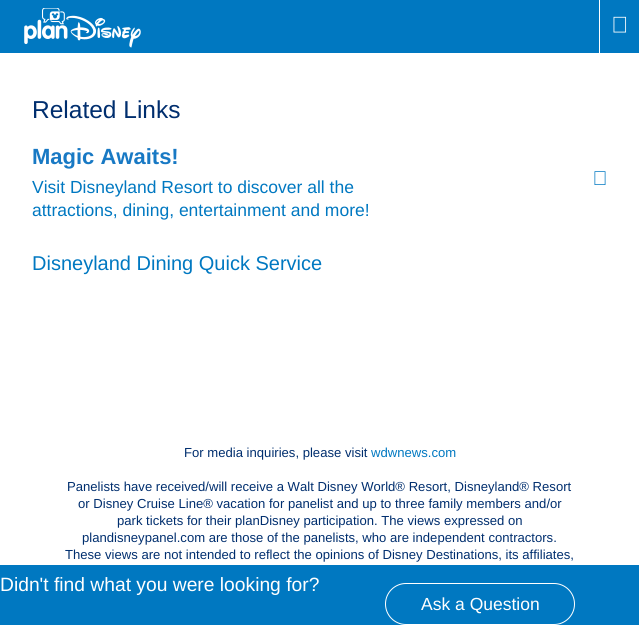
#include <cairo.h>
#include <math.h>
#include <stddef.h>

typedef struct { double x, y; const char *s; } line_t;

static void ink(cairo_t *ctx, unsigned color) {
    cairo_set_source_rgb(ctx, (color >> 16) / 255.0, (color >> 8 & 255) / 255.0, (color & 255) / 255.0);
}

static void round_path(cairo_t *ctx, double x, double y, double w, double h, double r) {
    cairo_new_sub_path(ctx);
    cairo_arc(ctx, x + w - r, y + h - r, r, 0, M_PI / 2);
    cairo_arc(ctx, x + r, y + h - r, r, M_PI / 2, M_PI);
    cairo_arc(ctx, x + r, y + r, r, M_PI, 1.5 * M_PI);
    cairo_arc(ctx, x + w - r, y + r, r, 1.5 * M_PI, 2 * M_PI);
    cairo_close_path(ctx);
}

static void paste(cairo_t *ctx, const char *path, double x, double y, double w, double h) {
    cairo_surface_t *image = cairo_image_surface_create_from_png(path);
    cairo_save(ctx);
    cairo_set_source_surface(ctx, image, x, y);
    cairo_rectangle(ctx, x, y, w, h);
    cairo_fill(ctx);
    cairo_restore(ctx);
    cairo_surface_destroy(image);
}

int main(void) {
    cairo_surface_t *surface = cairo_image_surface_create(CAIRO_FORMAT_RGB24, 639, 625);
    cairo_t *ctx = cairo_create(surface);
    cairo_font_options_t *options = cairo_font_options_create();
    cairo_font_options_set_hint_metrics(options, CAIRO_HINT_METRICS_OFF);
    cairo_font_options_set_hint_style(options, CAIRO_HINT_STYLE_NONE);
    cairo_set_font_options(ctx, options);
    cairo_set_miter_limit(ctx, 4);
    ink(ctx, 0xFFFFFF);
    cairo_paint(ctx);
    ink(ctx, 0x0078C1);
    cairo_rectangle(ctx, 0, 0, 639, 53);
    cairo_fill(ctx);
    paste(ctx, "media/1.png", 24, 8, 117, 40);
    ink(ctx, 0xFFFFFF);
    cairo_rectangle(ctx, 599, 0, 1, 53);
    cairo_fill(ctx);
    paste(ctx, "media/2.png", 613, 16, 14, 17);
    cairo_select_font_face(ctx, "Liberation Sans", CAIRO_FONT_SLANT_NORMAL, CAIRO_FONT_WEIGHT_NORMAL);
    cairo_set_font_size(ctx, 24.5);
    ink(ctx, 0x002E6E);
    cairo_move_to(ctx, 32, 118);
    cairo_show_text(ctx, "Related Links");
    cairo_select_font_face(ctx, "Liberation Sans", CAIRO_FONT_SLANT_NORMAL, CAIRO_FONT_WEIGHT_BOLD);
    cairo_set_font_size(ctx, 22);
    ink(ctx, 0x1879C4);
    cairo_move_to(ctx, 32, 164);
    cairo_show_text(ctx, "Magic Awaits!");
    cairo_select_font_face(ctx, "Liberation Sans", CAIRO_FONT_SLANT_NORMAL, CAIRO_FONT_WEIGHT_NORMAL);
    cairo_set_font_size(ctx, 17.5);
    ink(ctx, 0x0078C1);
    cairo_move_to(ctx, 32, 193);
    cairo_show_text(ctx, "Visit Disneyland Resort to discover all the");
    cairo_move_to(ctx, 32, 216);
    cairo_show_text(ctx, "attractions, dining, entertainment and more!");
    paste(ctx, "media/3.png", 594, 171, 12, 14);
    cairo_set_font_size(ctx, 20);
    cairo_move_to(ctx, 32, 270);
    cairo_show_text(ctx, "Disneyland Dining Quick Service");
    cairo_set_font_size(ctx, 13.1);
    ink(ctx, 0x002E6E);
    cairo_move_to(ctx, 184, 457);
    cairo_show_text(ctx, "For media inquiries, please visit");
    ink(ctx, 0x0078C1);
    cairo_move_to(ctx, 371, 457);
    cairo_show_text(ctx, "wdwnews.com");
    ink(ctx, 0x002E6E);
    {
        static const line_t items[] = {
            {67, 491, "Panelists have received/will receive a Walt Disney World® Resort, Disneyland® Resort"},
            {78, 508, "or Disney Cruise Line® vacation for panelist and up to three family members and/or"},
            {117, 525, "park tickets for their planDisney participation. The views expressed on"},
            {82, 542, "plandisneypanel.com are those of the panelists, who are independent contractors."},
            {65, 559, "These views are not intended to reflect the opinions of Disney Destinations, its affiliates,"},
        };
        for (size_t i = 0; i < sizeof items / sizeof *items; i++) {
            cairo_move_to(ctx, items[i].x, items[i].y);
            cairo_show_text(ctx, items[i].s);
        }
    }
    ink(ctx, 0x0078C1);
    cairo_rectangle(ctx, 0, 565, 639, 60);
    cairo_fill(ctx);
    cairo_set_font_size(ctx, 19.25);
    ink(ctx, 0xFFFFFF);
    cairo_move_to(ctx, 0, 591);
    cairo_show_text(ctx, "Didn't find what you were looking for?");
    round_path(ctx, 385.5, 583.5, 189, 41, 20.5);
    cairo_set_line_width(ctx, 1);
    cairo_stroke(ctx);
    cairo_set_font_size(ctx, 17.5);
    cairo_move_to(ctx, 421, 610);
    cairo_show_text(ctx, "Ask a Question");
    cairo_surface_write_to_png(surface, "image.png");
    cairo_font_options_destroy(options);
    cairo_destroy(ctx);
    cairo_surface_destroy(surface);
    return 0;
}
